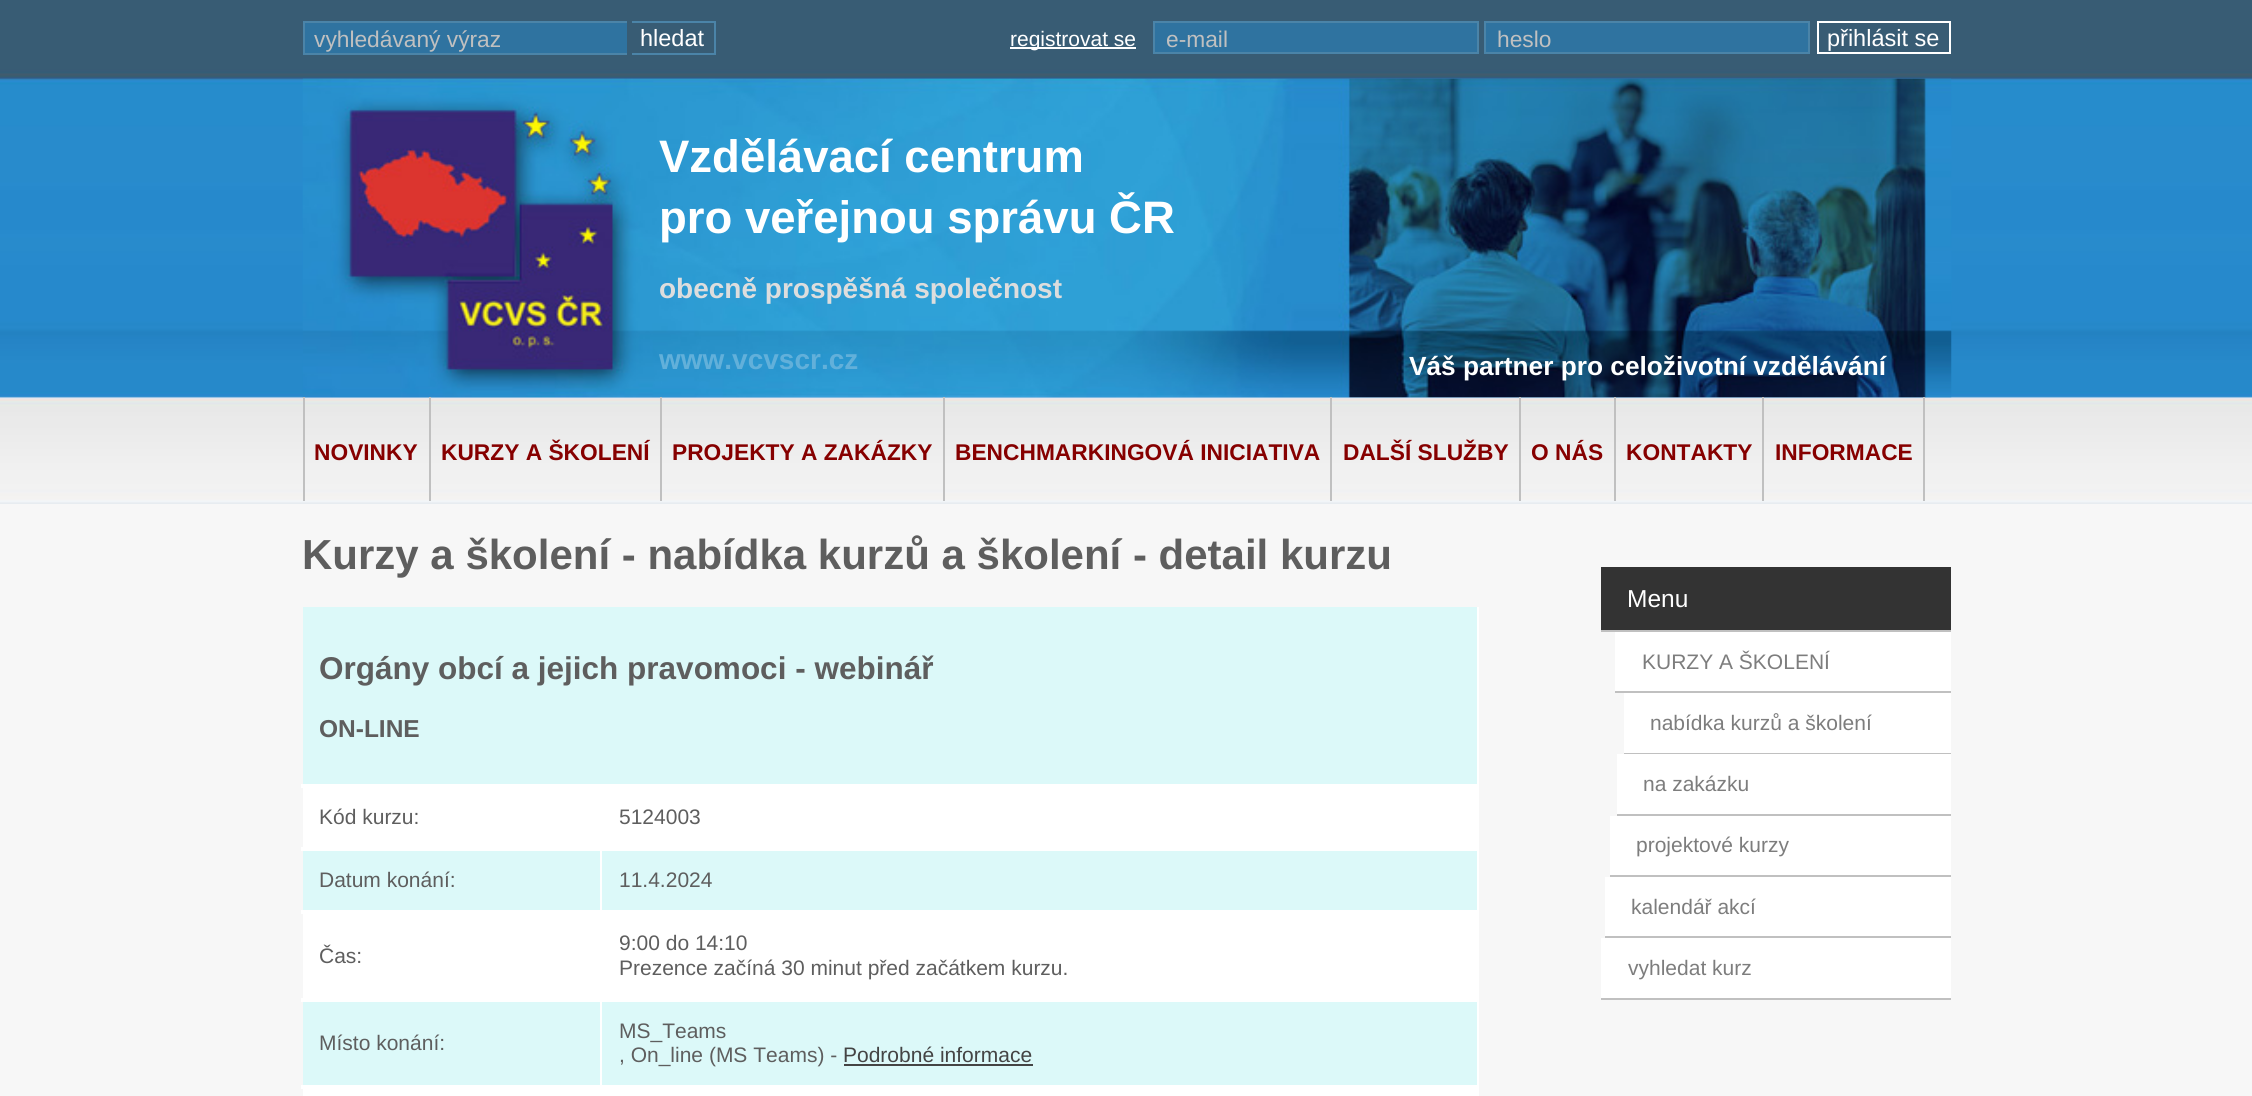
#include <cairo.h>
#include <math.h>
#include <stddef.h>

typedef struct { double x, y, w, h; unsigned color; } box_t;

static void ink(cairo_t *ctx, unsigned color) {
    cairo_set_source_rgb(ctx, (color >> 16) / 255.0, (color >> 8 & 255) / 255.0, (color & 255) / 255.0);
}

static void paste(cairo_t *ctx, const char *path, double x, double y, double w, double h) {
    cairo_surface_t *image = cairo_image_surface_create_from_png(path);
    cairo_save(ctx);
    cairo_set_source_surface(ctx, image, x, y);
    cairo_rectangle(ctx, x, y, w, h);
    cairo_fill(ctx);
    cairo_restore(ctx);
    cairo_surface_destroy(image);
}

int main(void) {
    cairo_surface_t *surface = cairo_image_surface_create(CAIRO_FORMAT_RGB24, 2252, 1096);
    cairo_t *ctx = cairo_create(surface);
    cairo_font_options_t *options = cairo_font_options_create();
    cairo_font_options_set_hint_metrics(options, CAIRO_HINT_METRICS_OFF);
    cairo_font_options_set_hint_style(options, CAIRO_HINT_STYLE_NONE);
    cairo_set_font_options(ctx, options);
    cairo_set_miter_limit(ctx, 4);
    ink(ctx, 0xF7F7F7);
    cairo_paint(ctx);
    paste(ctx, "media/1.png", 0, 0, 2252, 504);
    {
        static const box_t items[] = {
            {305, 23, 322, 30, 0x2F73A0},
            {303, 21, 324, 2, 0x4B84A8},
            {303, 53, 324, 2, 0x4B84A8},
            {303, 21, 2, 33, 0x4B84A8},
        };
        for (size_t i = 0; i < sizeof items / sizeof *items; i++) {
            ink(ctx, items[i].color);
            cairo_rectangle(ctx, items[i].x, items[i].y, items[i].w, items[i].h);
            cairo_fill(ctx);
        }
    }
    cairo_select_font_face(ctx, "Liberation Sans", CAIRO_FONT_SLANT_NORMAL, CAIRO_FONT_WEIGHT_NORMAL);
    cairo_set_font_size(ctx, 22.75);
    ink(ctx, 0xC0C0C0);
    cairo_move_to(ctx, 314, 47);
    cairo_show_text(ctx, "vyhledávaný výraz");
    {
        static const box_t items[] = {
            {632, 21, 84, 2, 0x4B84A8},
            {714, 21, 2, 33, 0x4B84A8},
            {632, 53, 84, 2, 0x4B84A8},
        };
        for (size_t i = 0; i < sizeof items / sizeof *items; i++) {
            ink(ctx, items[i].color);
            cairo_rectangle(ctx, items[i].x, items[i].y, items[i].w, items[i].h);
            cairo_fill(ctx);
        }
    }
    cairo_set_font_size(ctx, 23.5);
    ink(ctx, 0xFFFFFF);
    cairo_move_to(ctx, 640, 46);
    cairo_show_text(ctx, "hledat");
    cairo_rectangle(ctx, 1010, 47, 126, 2);
    cairo_fill(ctx);
    cairo_set_font_size(ctx, 21);
    cairo_move_to(ctx, 1010, 46);
    cairo_show_text(ctx, "registrovat se");
    ink(ctx, 0x2F73A0);
    cairo_rectangle(ctx, 1154, 22, 324, 31);
    cairo_fill_preserve(ctx);
    ink(ctx, 0x4B84A8);
    cairo_stroke(ctx);
    cairo_set_font_size(ctx, 22.75);
    ink(ctx, 0xC0C0C0);
    cairo_move_to(ctx, 1166, 47);
    cairo_show_text(ctx, "e-mail");
    ink(ctx, 0x2F73A0);
    cairo_rectangle(ctx, 1485, 22, 324, 31);
    cairo_fill_preserve(ctx);
    ink(ctx, 0x4B84A8);
    cairo_stroke(ctx);
    ink(ctx, 0xC0C0C0);
    cairo_move_to(ctx, 1497, 47);
    cairo_show_text(ctx, "heslo");
    cairo_rectangle(ctx, 1818, 22, 132, 31);
    ink(ctx, 0xFFFFFF);
    cairo_stroke(ctx);
    cairo_set_font_size(ctx, 23.5);
    cairo_move_to(ctx, 1827, 46);
    cairo_show_text(ctx, "přihlásit se");
    paste(ctx, "media/2.png", 302, 78, 1650, 320);
    cairo_select_font_face(ctx, "Liberation Sans", CAIRO_FONT_SLANT_NORMAL, CAIRO_FONT_WEIGHT_BOLD);
    cairo_set_font_size(ctx, 45.5);
    cairo_move_to(ctx, 659, 172);
    cairo_show_text(ctx, "Vzdělávací centrum");
    cairo_move_to(ctx, 659, 233);
    cairo_show_text(ctx, "pro veřejnou správu ČR");
    cairo_set_font_size(ctx, 28);
    ink(ctx, 0xDDDDDD);
    cairo_move_to(ctx, 659, 298);
    cairo_show_text(ctx, "obecně prospěšná společnost");
    ink(ctx, 0x62B0DA);
    cairo_move_to(ctx, 659, 369);
    cairo_show_text(ctx, "www.vcvscr.cz");
    cairo_set_font_size(ctx, 26.25);
    ink(ctx, 0xFFFFFF);
    cairo_move_to(ctx, 1409, 375);
    cairo_show_text(ctx, "Váš partner pro celoživotní vzdělávání");
    ink(ctx, 0xC0C0C0);
    cairo_rectangle(ctx, 303, 397, 2, 104);
    cairo_fill(ctx);
    cairo_rectangle(ctx, 429, 397, 2, 104);
    cairo_fill(ctx);
    cairo_set_font_size(ctx, 22.75);
    ink(ctx, 0x860000);
    cairo_move_to(ctx, 314, 460);
    cairo_show_text(ctx, "NOVINKY");
    ink(ctx, 0xC0C0C0);
    cairo_rectangle(ctx, 660, 397, 2, 104);
    cairo_fill(ctx);
    ink(ctx, 0x860000);
    cairo_move_to(ctx, 441, 460);
    cairo_show_text(ctx, "KURZY A ŠKOLENÍ");
    ink(ctx, 0xC0C0C0);
    cairo_rectangle(ctx, 943, 397, 2, 104);
    cairo_fill(ctx);
    ink(ctx, 0x860000);
    cairo_move_to(ctx, 672, 460);
    cairo_show_text(ctx, "PROJEKTY A ZAKÁZKY");
    ink(ctx, 0xC0C0C0);
    cairo_rectangle(ctx, 1330, 397, 2, 104);
    cairo_fill(ctx);
    ink(ctx, 0x860000);
    cairo_move_to(ctx, 955, 460);
    cairo_show_text(ctx, "BENCHMARKINGOVÁ INICIATIVA");
    ink(ctx, 0xC0C0C0);
    cairo_rectangle(ctx, 1519, 397, 2, 104);
    cairo_fill(ctx);
    ink(ctx, 0x860000);
    cairo_move_to(ctx, 1343, 460);
    cairo_show_text(ctx, "DALŠÍ SLUŽBY");
    ink(ctx, 0xC0C0C0);
    cairo_rectangle(ctx, 1614, 397, 2, 104);
    cairo_fill(ctx);
    ink(ctx, 0x860000);
    cairo_move_to(ctx, 1531, 460);
    cairo_show_text(ctx, "O NÁS");
    ink(ctx, 0xC0C0C0);
    cairo_rectangle(ctx, 1762, 397, 2, 104);
    cairo_fill(ctx);
    ink(ctx, 0x860000);
    cairo_move_to(ctx, 1626, 460);
    cairo_show_text(ctx, "KONTAKTY");
    ink(ctx, 0xC0C0C0);
    cairo_rectangle(ctx, 1923, 397, 2, 104);
    cairo_fill(ctx);
    ink(ctx, 0x860000);
    cairo_move_to(ctx, 1775, 460);
    cairo_show_text(ctx, "INFORMACE");
    cairo_set_font_size(ctx, 42);
    ink(ctx, 0x5E5E5E);
    cairo_move_to(ctx, 302, 569);
    cairo_show_text(ctx, "Kurzy a školení - nabídka kurzů a školení - detail kurzu");
    {
        static const box_t items[] = {
            {303, 1089, 1174, 7, 0xFFFFFF},
            {1477, 607, 2, 489, 0xFFFFFF},
            {303, 607, 1174, 177, 0xDCF9F9},
            {301, 784, 1178, 4, 0xFFFFFF},
        };
        for (size_t i = 0; i < sizeof items / sizeof *items; i++) {
            ink(ctx, items[i].color);
            cairo_rectangle(ctx, items[i].x, items[i].y, items[i].w, items[i].h);
            cairo_fill(ctx);
        }
    }
    cairo_set_font_size(ctx, 31.5);
    ink(ctx, 0x5E5E5E);
    cairo_move_to(ctx, 319, 679);
    cairo_show_text(ctx, "Orgány obcí a jejich pravomoci - webinář");
    cairo_set_font_size(ctx, 24.5);
    cairo_move_to(ctx, 319, 737);
    cairo_show_text(ctx, "ON-LINE");
    ink(ctx, 0xFFFFFF);
    cairo_rectangle(ctx, 303, 788, 1174, 59);
    cairo_fill(ctx);
    cairo_select_font_face(ctx, "Liberation Sans", CAIRO_FONT_SLANT_NORMAL, CAIRO_FONT_WEIGHT_NORMAL);
    cairo_set_font_size(ctx, 21);
    ink(ctx, 0x5E5E5E);
    cairo_move_to(ctx, 319, 824);
    cairo_show_text(ctx, "Kód kurzu:");
    ink(ctx, 0xFFFFFF);
    cairo_rectangle(ctx, 600, 849, 2, 65);
    cairo_fill(ctx);
    cairo_rectangle(ctx, 301, 847, 1178, 4);
    cairo_fill(ctx);
    ink(ctx, 0x5E5E5E);
    cairo_move_to(ctx, 619, 824);
    cairo_show_text(ctx, "5124003");
    ink(ctx, 0xDCF9F9);
    cairo_rectangle(ctx, 303, 851, 297, 59);
    cairo_fill(ctx);
    ink(ctx, 0x5E5E5E);
    cairo_move_to(ctx, 319, 887);
    cairo_show_text(ctx, "Datum konání:");
    ink(ctx, 0xDCF9F9);
    cairo_rectangle(ctx, 602, 851, 875, 59);
    cairo_fill(ctx);
    ink(ctx, 0xFFFFFF);
    cairo_rectangle(ctx, 301, 910, 1178, 4);
    cairo_fill(ctx);
    ink(ctx, 0x5E5E5E);
    cairo_move_to(ctx, 619, 887);
    cairo_show_text(ctx, "11.4.2024");
    ink(ctx, 0xFFFFFF);
    cairo_rectangle(ctx, 303, 914, 1174, 84);
    cairo_fill(ctx);
    ink(ctx, 0x5E5E5E);
    cairo_move_to(ctx, 319, 963);
    cairo_show_text(ctx, "Čas:");
    ink(ctx, 0xFFFFFF);
    cairo_rectangle(ctx, 600, 999, 2, 90);
    cairo_fill(ctx);
    cairo_rectangle(ctx, 301, 998, 1178, 4);
    cairo_fill(ctx);
    ink(ctx, 0x5E5E5E);
    cairo_move_to(ctx, 619, 950);
    cairo_show_text(ctx, "9:00 do 14:10");
    cairo_move_to(ctx, 619, 975);
    cairo_show_text(ctx, "Prezence začíná 30 minut před začátkem kurzu.");
    ink(ctx, 0xDCF9F9);
    cairo_rectangle(ctx, 303, 1002, 297, 83);
    cairo_fill(ctx);
    ink(ctx, 0x5E5E5E);
    cairo_move_to(ctx, 319, 1050);
    cairo_show_text(ctx, "Místo konání:");
    ink(ctx, 0xDCF9F9);
    cairo_rectangle(ctx, 602, 1002, 875, 83);
    cairo_fill(ctx);
    ink(ctx, 0xFFFFFF);
    cairo_rectangle(ctx, 301, 1085, 1178, 4);
    cairo_fill(ctx);
    ink(ctx, 0x5E5E5E);
    cairo_move_to(ctx, 619, 1038);
    cairo_show_text(ctx, "MS_Teams");
    cairo_move_to(ctx, 619, 1062);
    cairo_show_text(ctx, ", On_line (MS Teams) -");
    ink(ctx, 0x444444);
    cairo_move_to(ctx, 843, 1062);
    cairo_show_text(ctx, "Podrobné informace");
    {
        static const box_t items[] = {
            {844, 1064, 189, 2, 0x444444},
            {1601, 630, 350, 2, 0xC0C0C0},
            {1601, 567, 350, 63, 0x333333},
        };
        for (size_t i = 0; i < sizeof items / sizeof *items; i++) {
            ink(ctx, items[i].color);
            cairo_rectangle(ctx, items[i].x, items[i].y, items[i].w, items[i].h);
            cairo_fill(ctx);
        }
    }
    cairo_set_font_size(ctx, 24.5);
    ink(ctx, 0xFFFFFF);
    cairo_move_to(ctx, 1627, 607);
    cairo_show_text(ctx, "Menu");
    ink(ctx, 0xC0C0C0);
    cairo_rectangle(ctx, 1615, 691, 336, 2);
    cairo_fill(ctx);
    ink(ctx, 0xFFFFFF);
    cairo_rectangle(ctx, 1615, 632, 336, 59);
    cairo_fill(ctx);
    cairo_set_font_size(ctx, 21);
    ink(ctx, 0x7D7D7D);
    cairo_move_to(ctx, 1642, 669);
    cairo_show_text(ctx, "KURZY A ŠKOLENÍ");
    ink(ctx, 0xC0C0C0);
    cairo_rectangle(ctx, 1624, 753, 327, 1);
    cairo_fill(ctx);
    ink(ctx, 0xFFFFFF);
    cairo_rectangle(ctx, 1624, 693, 327, 60);
    cairo_fill(ctx);
    ink(ctx, 0x7D7D7D);
    cairo_move_to(ctx, 1650, 730);
    cairo_show_text(ctx, "nabídka kurzů a školení");
    ink(ctx, 0xC0C0C0);
    cairo_rectangle(ctx, 1617, 814, 334, 2);
    cairo_fill(ctx);
    ink(ctx, 0xFFFFFF);
    cairo_rectangle(ctx, 1617, 754, 334, 60);
    cairo_fill(ctx);
    ink(ctx, 0x7D7D7D);
    cairo_move_to(ctx, 1643, 791);
    cairo_show_text(ctx, "na zakázku");
    ink(ctx, 0xC0C0C0);
    cairo_rectangle(ctx, 1610, 875, 341, 2);
    cairo_fill(ctx);
    ink(ctx, 0xFFFFFF);
    cairo_rectangle(ctx, 1610, 816, 341, 59);
    cairo_fill(ctx);
    ink(ctx, 0x7D7D7D);
    cairo_move_to(ctx, 1636, 852);
    cairo_show_text(ctx, "projektové kurzy");
    ink(ctx, 0xC0C0C0);
    cairo_rectangle(ctx, 1605, 936, 346, 2);
    cairo_fill(ctx);
    ink(ctx, 0xFFFFFF);
    cairo_rectangle(ctx, 1605, 877, 346, 59);
    cairo_fill(ctx);
    ink(ctx, 0x7D7D7D);
    cairo_move_to(ctx, 1631, 914);
    cairo_show_text(ctx, "kalendář akcí");
    ink(ctx, 0xC0C0C0);
    cairo_rectangle(ctx, 1601, 998, 350, 2);
    cairo_fill(ctx);
    ink(ctx, 0xFFFFFF);
    cairo_rectangle(ctx, 1601, 938, 350, 60);
    cairo_fill(ctx);
    ink(ctx, 0x7D7D7D);
    cairo_move_to(ctx, 1628, 975);
    cairo_show_text(ctx, "vyhledat kurz");
    cairo_surface_write_to_png(surface, "image.png");
    cairo_font_options_destroy(options);
    cairo_destroy(ctx);
    cairo_surface_destroy(surface);
    return 0;
}
